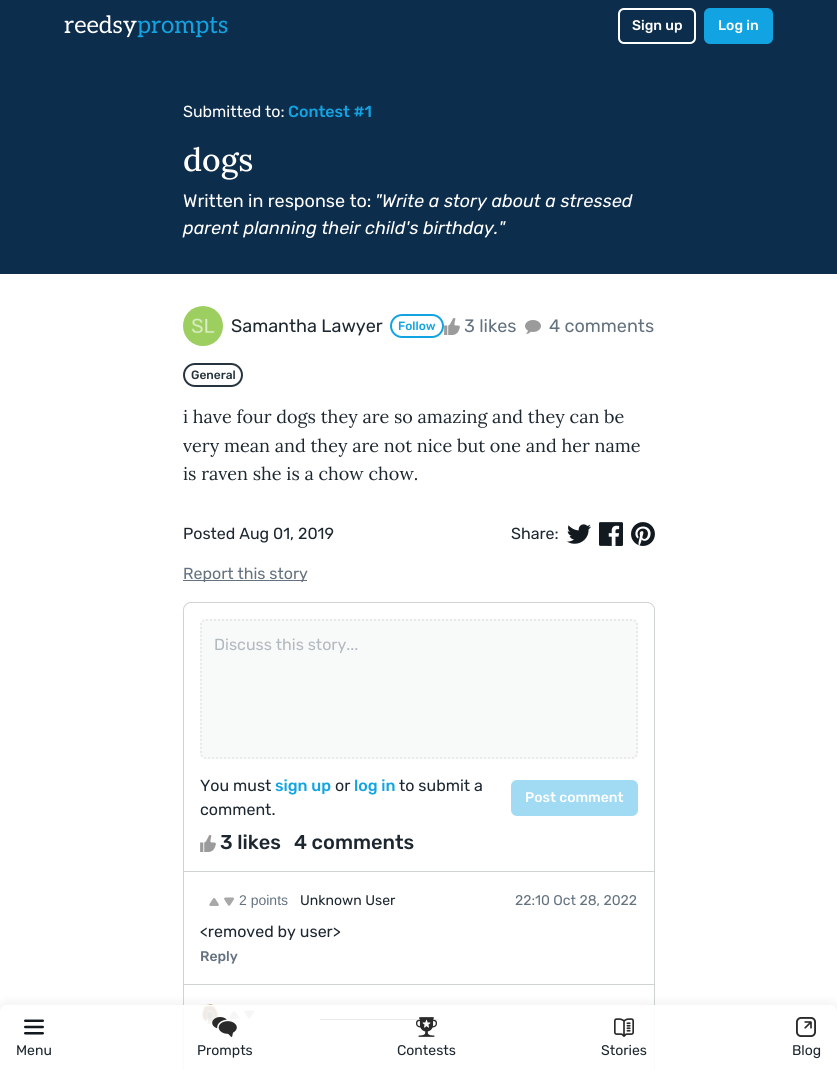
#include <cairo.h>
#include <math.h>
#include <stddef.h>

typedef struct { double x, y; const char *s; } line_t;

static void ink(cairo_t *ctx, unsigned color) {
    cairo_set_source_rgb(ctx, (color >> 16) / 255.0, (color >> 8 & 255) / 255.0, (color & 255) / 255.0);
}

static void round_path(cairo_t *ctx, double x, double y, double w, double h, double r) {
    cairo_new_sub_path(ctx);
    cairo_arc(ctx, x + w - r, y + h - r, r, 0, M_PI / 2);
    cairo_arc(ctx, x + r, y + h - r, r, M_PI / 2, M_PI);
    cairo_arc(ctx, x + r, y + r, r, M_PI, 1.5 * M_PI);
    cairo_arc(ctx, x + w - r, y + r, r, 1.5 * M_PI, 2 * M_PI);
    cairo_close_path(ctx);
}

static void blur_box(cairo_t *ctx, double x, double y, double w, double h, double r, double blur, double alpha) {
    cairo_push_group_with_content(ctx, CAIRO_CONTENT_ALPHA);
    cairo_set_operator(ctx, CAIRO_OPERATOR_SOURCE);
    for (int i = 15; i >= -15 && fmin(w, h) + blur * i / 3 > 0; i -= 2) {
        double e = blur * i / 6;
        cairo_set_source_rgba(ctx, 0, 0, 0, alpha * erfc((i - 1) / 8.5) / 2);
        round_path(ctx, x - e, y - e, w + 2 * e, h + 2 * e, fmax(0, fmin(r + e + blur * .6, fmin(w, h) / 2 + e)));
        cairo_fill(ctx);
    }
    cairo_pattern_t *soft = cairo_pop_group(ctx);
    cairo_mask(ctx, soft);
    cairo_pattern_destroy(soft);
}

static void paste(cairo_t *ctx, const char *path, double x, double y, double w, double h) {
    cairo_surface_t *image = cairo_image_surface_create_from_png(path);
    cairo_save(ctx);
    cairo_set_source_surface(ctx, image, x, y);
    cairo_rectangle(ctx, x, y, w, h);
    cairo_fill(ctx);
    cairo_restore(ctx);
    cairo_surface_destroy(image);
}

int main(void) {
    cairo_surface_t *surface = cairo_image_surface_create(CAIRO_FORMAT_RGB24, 837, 1070);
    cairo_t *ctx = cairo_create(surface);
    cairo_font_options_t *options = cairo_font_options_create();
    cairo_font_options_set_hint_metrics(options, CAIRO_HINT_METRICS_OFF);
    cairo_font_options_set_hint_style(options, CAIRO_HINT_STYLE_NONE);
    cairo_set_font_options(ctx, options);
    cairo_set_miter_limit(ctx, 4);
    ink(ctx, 0xFFFFFF);
    cairo_paint(ctx);
    ink(ctx, 0x0D2D4D);
    cairo_rectangle(ctx, 0, 0, 837, 274);
    cairo_fill(ctx);
    cairo_select_font_face(ctx, "Aleo", CAIRO_FONT_SLANT_NORMAL, CAIRO_FONT_WEIGHT_NORMAL);
    cairo_set_font_size(ctx, 24);
    ink(ctx, 0xFFFFFF);
    cairo_move_to(ctx, 64, 33);
    cairo_show_text(ctx, "reedsy");
    ink(ctx, 0x12A4E2);
    cairo_move_to(ctx, 137, 33);
    cairo_show_text(ctx, "prompts");
    round_path(ctx, 619, 9, 76, 34, 5);
    ink(ctx, 0xFFFFFF);
    cairo_stroke(ctx);
    cairo_select_font_face(ctx, "Rubik Medium", CAIRO_FONT_SLANT_NORMAL, CAIRO_FONT_WEIGHT_NORMAL);
    cairo_set_font_size(ctx, 14);
    cairo_move_to(ctx, 632, 30);
    cairo_show_text(ctx, "Sign up");
    ink(ctx, 0x12A4E2);
    round_path(ctx, 705, 9, 67, 34, 5);
    cairo_fill_preserve(ctx);
    cairo_stroke(ctx);
    ink(ctx, 0xFFFFFF);
    cairo_move_to(ctx, 718, 30);
    cairo_show_text(ctx, "Log in");
    cairo_select_font_face(ctx, "Rubik", CAIRO_FONT_SLANT_NORMAL, CAIRO_FONT_WEIGHT_NORMAL);
    cairo_set_font_size(ctx, 16);
    cairo_move_to(ctx, 183, 117);
    cairo_show_text(ctx, "Submitted to:");
    cairo_select_font_face(ctx, "Rubik Medium", CAIRO_FONT_SLANT_NORMAL, CAIRO_FONT_WEIGHT_NORMAL);
    ink(ctx, 0x12A4E2);
    cairo_move_to(ctx, 288, 117);
    cairo_show_text(ctx, "Contest #1");
    cairo_select_font_face(ctx, "Lora Medium", CAIRO_FONT_SLANT_NORMAL, CAIRO_FONT_WEIGHT_NORMAL);
    cairo_set_font_size(ctx, 32);
    ink(ctx, 0xFFFFFF);
    cairo_move_to(ctx, 183, 171);
    cairo_show_text(ctx, "dogs");
    cairo_select_font_face(ctx, "Rubik", CAIRO_FONT_SLANT_NORMAL, CAIRO_FONT_WEIGHT_NORMAL);
    cairo_set_font_size(ctx, 18);
    cairo_move_to(ctx, 183, 207);
    cairo_show_text(ctx, "Written in response to:");
    cairo_select_font_face(ctx, "Rubik", CAIRO_FONT_SLANT_ITALIC, CAIRO_FONT_WEIGHT_NORMAL);
    cairo_move_to(ctx, 375, 207);
    cairo_show_text(ctx, "\"Write a story about a stressed");
    cairo_move_to(ctx, 183, 234);
    cairo_show_text(ctx, "parent planning their child's birthday.\"");
    round_path(ctx, 183.5, 602.5, 471, 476, 7.5);
    ink(ctx, 0xD0D3D3);
    cairo_set_line_width(ctx, 1);
    cairo_stroke(ctx);
    cairo_rectangle(ctx, 184, 984, 470, 1);
    cairo_fill(ctx);
    paste(ctx, "media/14.png", 200, 1004, 19, 20);
    paste(ctx, "media/12.png", 229, 1011, 10, 8);
    paste(ctx, "media/13.png", 244, 1010, 10, 9);
    ink(ctx, 0x1D2730);
    cairo_rectangle(ctx, 320, 1019, 118, 1);
    cairo_fill(ctx);
    cairo_save(ctx);
    cairo_set_fill_rule(ctx, CAIRO_FILL_RULE_EVEN_ODD);
    cairo_new_path(ctx);
    cairo_move_to(ctx, 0, 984);
    cairo_line_to(ctx, 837, 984);
    cairo_line_to(ctx, 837, 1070);
    cairo_line_to(ctx, 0, 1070);
    cairo_close_path(ctx);
    cairo_move_to(ctx, 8, 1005);
    cairo_line_to(ctx, 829, 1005);
    cairo_curve_to(ctx, 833.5, 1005, 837, 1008.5, 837, 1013);
    cairo_line_to(ctx, 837, 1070);
    cairo_line_to(ctx, 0, 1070);
    cairo_line_to(ctx, 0, 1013);
    cairo_curve_to(ctx, 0, 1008.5, 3.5, 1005, 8, 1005);
    cairo_close_path(ctx);
    cairo_clip(ctx);
    ink(ctx, 0x11111A);
    blur_box(ctx, 0, 1009, 837, 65, 8, 8, 0.15);
    cairo_restore(ctx);
    cairo_set_source_rgba(ctx, 1, 1, 1, 0.9);
    cairo_new_path(ctx);
    cairo_move_to(ctx, 8, 1005);
    cairo_line_to(ctx, 829, 1005);
    cairo_curve_to(ctx, 833.5, 1005, 837, 1008.5, 837, 1013);
    cairo_line_to(ctx, 837, 1070);
    cairo_line_to(ctx, 0, 1070);
    cairo_line_to(ctx, 0, 1013);
    cairo_curve_to(ctx, 0, 1008.5, 3.5, 1005, 8, 1005);
    cairo_close_path(ctx);
    cairo_fill(ctx);
    ink(ctx, 0xFFFFFF);
    cairo_rectangle(ctx, 4, 1005, 829, 1);
    cairo_fill(ctx);
    paste(ctx, "media/1.png", 24, 1019, 20, 16);
    cairo_select_font_face(ctx, "Rubik", CAIRO_FONT_SLANT_NORMAL, CAIRO_FONT_WEIGHT_NORMAL);
    cairo_set_font_size(ctx, 14);
    ink(ctx, 0x1D2730);
    cairo_move_to(ctx, 16, 1055);
    cairo_show_text(ctx, "Menu");
    paste(ctx, "media/2.png", 212, 1017, 25, 20);
    cairo_move_to(ctx, 197, 1055);
    cairo_show_text(ctx, "Prompts");
    paste(ctx, "media/3.png", 416, 1017, 21, 20);
    cairo_move_to(ctx, 397, 1055);
    cairo_show_text(ctx, "Contests");
    paste(ctx, "media/4.png", 614, 1018, 20, 19);
    cairo_move_to(ctx, 601, 1055);
    cairo_show_text(ctx, "Stories");
    paste(ctx, "media/5.png", 796, 1017, 20, 20);
    cairo_move_to(ctx, 792, 1055);
    cairo_show_text(ctx, "Blog");
    paste(ctx, "media/6.png", 183, 306, 40, 40);
    cairo_set_font_size(ctx, 18);
    cairo_move_to(ctx, 231, 332);
    cairo_show_text(ctx, "Samantha Lawyer");
    round_path(ctx, 391, 315, 52, 22, 11);
    ink(ctx, 0x12A4E2);
    cairo_set_line_width(ctx, 2);
    cairo_stroke(ctx);
    cairo_select_font_face(ctx, "Rubik Medium", CAIRO_FONT_SLANT_NORMAL, CAIRO_FONT_WEIGHT_NORMAL);
    cairo_set_font_size(ctx, 12);
    cairo_move_to(ctx, 398, 330);
    cairo_show_text(ctx, "Follow");
    paste(ctx, "media/7.png", 444, 318, 16, 17);
    cairo_select_font_face(ctx, "Rubik", CAIRO_FONT_SLANT_NORMAL, CAIRO_FONT_WEIGHT_NORMAL);
    cairo_set_font_size(ctx, 18);
    ink(ctx, 0x64727F);
    cairo_move_to(ctx, 464, 332);
    cairo_show_text(ctx, "3 likes");
    paste(ctx, "media/8.png", 525, 320, 16, 14);
    cairo_move_to(ctx, 549, 332);
    cairo_show_text(ctx, "4 comments");
    round_path(ctx, 184, 364, 58, 22, 11);
    ink(ctx, 0x26343F);
    cairo_stroke(ctx);
    cairo_select_font_face(ctx, "Rubik Medium", CAIRO_FONT_SLANT_NORMAL, CAIRO_FONT_WEIGHT_NORMAL);
    cairo_set_font_size(ctx, 12);
    cairo_move_to(ctx, 191, 379);
    cairo_show_text(ctx, "General");
    cairo_select_font_face(ctx, "Lora", CAIRO_FONT_SLANT_NORMAL, CAIRO_FONT_WEIGHT_NORMAL);
    cairo_set_font_size(ctx, 18);
    ink(ctx, 0x1D2730);
    {
        static const line_t items[] = {
            {183, 423, "i have four dogs they are so amazing and they can be"},
            {183, 452, "very mean and they are not nice but one and her name"},
            {183, 480, "is raven she is a chow chow."},
        };
        for (size_t i = 0; i < sizeof items / sizeof *items; i++) {
            cairo_move_to(ctx, items[i].x, items[i].y);
            cairo_show_text(ctx, items[i].s);
        }
    }
    cairo_select_font_face(ctx, "Rubik", CAIRO_FONT_SLANT_NORMAL, CAIRO_FONT_WEIGHT_NORMAL);
    cairo_set_font_size(ctx, 16);
    cairo_move_to(ctx, 183, 539);
    cairo_show_text(ctx, "Posted Aug 01, 2019");
    cairo_move_to(ctx, 511, 539);
    cairo_show_text(ctx, "Share:");
    paste(ctx, "media/9.png", 567, 524, 24, 20);
    paste(ctx, "media/10.png", 599, 522, 24, 24);
    paste(ctx, "media/11.png", 631, 522, 24, 24);
    ink(ctx, 0x64727F);
    cairo_rectangle(ctx, 183, 580, 124, 1);
    cairo_fill(ctx);
    cairo_move_to(ctx, 183, 579);
    cairo_show_text(ctx, "Report this story");
    ink(ctx, 0xF8F9F9);
    round_path(ctx, 200, 619, 438, 140, 6);
    cairo_fill(ctx);
    cairo_new_path(ctx);
    cairo_move_to(ctx, 206, 620);
    cairo_line_to(ctx, 632, 620);
    cairo_curve_to(ctx, 635, 620, 637, 622, 637, 625);
    cairo_line_to(ctx, 637, 753);
    cairo_curve_to(ctx, 637, 756, 635, 758, 632, 758);
    cairo_line_to(ctx, 206, 758);
    cairo_curve_to(ctx, 203, 758, 201, 756, 201, 753);
    cairo_line_to(ctx, 201, 625);
    cairo_curve_to(ctx, 201, 622, 203, 620, 206, 620);
    cairo_close_path(ctx);
    ink(ctx, 0xE8E9E9);
    cairo_set_dash(ctx, (double[]){2, 2}, 2, 0);
    cairo_stroke(ctx);
    ink(ctx, 0xB2B9BF);
    cairo_move_to(ctx, 214, 650);
    cairo_show_text(ctx, "Discuss this story...");
    ink(ctx, 0x1D2730);
    cairo_move_to(ctx, 200, 791);
    cairo_show_text(ctx, "You must");
    cairo_select_font_face(ctx, "Rubik Medium", CAIRO_FONT_SLANT_NORMAL, CAIRO_FONT_WEIGHT_NORMAL);
    ink(ctx, 0x12A4E2);
    cairo_move_to(ctx, 275, 791);
    cairo_show_text(ctx, "sign up");
    cairo_select_font_face(ctx, "Rubik", CAIRO_FONT_SLANT_NORMAL, CAIRO_FONT_WEIGHT_NORMAL);
    ink(ctx, 0x1D2730);
    cairo_move_to(ctx, 335, 791);
    cairo_show_text(ctx, "or");
    cairo_select_font_face(ctx, "Rubik Medium", CAIRO_FONT_SLANT_NORMAL, CAIRO_FONT_WEIGHT_NORMAL);
    ink(ctx, 0x12A4E2);
    cairo_move_to(ctx, 354, 791);
    cairo_show_text(ctx, "log in");
    cairo_select_font_face(ctx, "Rubik", CAIRO_FONT_SLANT_NORMAL, CAIRO_FONT_WEIGHT_NORMAL);
    ink(ctx, 0x1D2730);
    cairo_move_to(ctx, 399, 791);
    cairo_show_text(ctx, "to submit a");
    cairo_move_to(ctx, 200, 815);
    cairo_show_text(ctx, "comment.");
    ink(ctx, 0xA0DBF3);
    round_path(ctx, 512, 781, 125, 34, 5);
    cairo_fill_preserve(ctx);
    cairo_set_dash(ctx, NULL, 0, 0);
    cairo_stroke(ctx);
    cairo_select_font_face(ctx, "Rubik Medium", CAIRO_FONT_SLANT_NORMAL, CAIRO_FONT_WEIGHT_NORMAL);
    cairo_set_font_size(ctx, 14);
    ink(ctx, 0xFFFFFF);
    cairo_move_to(ctx, 525, 802);
    cairo_show_text(ctx, "Post comment");
    paste(ctx, "media/7.png", 200, 835, 16, 17);
    cairo_set_font_size(ctx, 20);
    ink(ctx, 0x1D2730);
    cairo_move_to(ctx, 220, 849);
    cairo_show_text(ctx, "3 likes");
    cairo_move_to(ctx, 294, 849);
    cairo_show_text(ctx, "4 comments");
    ink(ctx, 0xD0D3D3);
    cairo_rectangle(ctx, 184, 871, 470, 1);
    cairo_fill(ctx);
    paste(ctx, "media/12.png", 209, 898, 10, 8);
    paste(ctx, "media/13.png", 224, 897, 10, 9);
    cairo_select_font_face(ctx, "Liberation Sans", CAIRO_FONT_SLANT_NORMAL, CAIRO_FONT_WEIGHT_NORMAL);
    cairo_set_font_size(ctx, 14);
    ink(ctx, 0x64727F);
    cairo_move_to(ctx, 239, 905);
    cairo_show_text(ctx, "2 points");
    cairo_select_font_face(ctx, "Rubik", CAIRO_FONT_SLANT_NORMAL, CAIRO_FONT_WEIGHT_NORMAL);
    ink(ctx, 0x1D2730);
    cairo_move_to(ctx, 300, 905);
    cairo_show_text(ctx, "Unknown User");
    ink(ctx, 0x64727F);
    cairo_move_to(ctx, 515, 905);
    cairo_show_text(ctx, "22:10 Oct 28, 2022");
    cairo_set_font_size(ctx, 16);
    ink(ctx, 0x1D2730);
    cairo_move_to(ctx, 200, 937);
    cairo_show_text(ctx, "<removed by user>");
    cairo_select_font_face(ctx, "Rubik Medium", CAIRO_FONT_SLANT_NORMAL, CAIRO_FONT_WEIGHT_NORMAL);
    cairo_set_font_size(ctx, 14);
    ink(ctx, 0x64727F);
    cairo_move_to(ctx, 200, 961);
    cairo_show_text(ctx, "Reply");
    cairo_surface_write_to_png(surface, "image.png");
    cairo_font_options_destroy(options);
    cairo_destroy(ctx);
    cairo_surface_destroy(surface);
    return 0;
}
